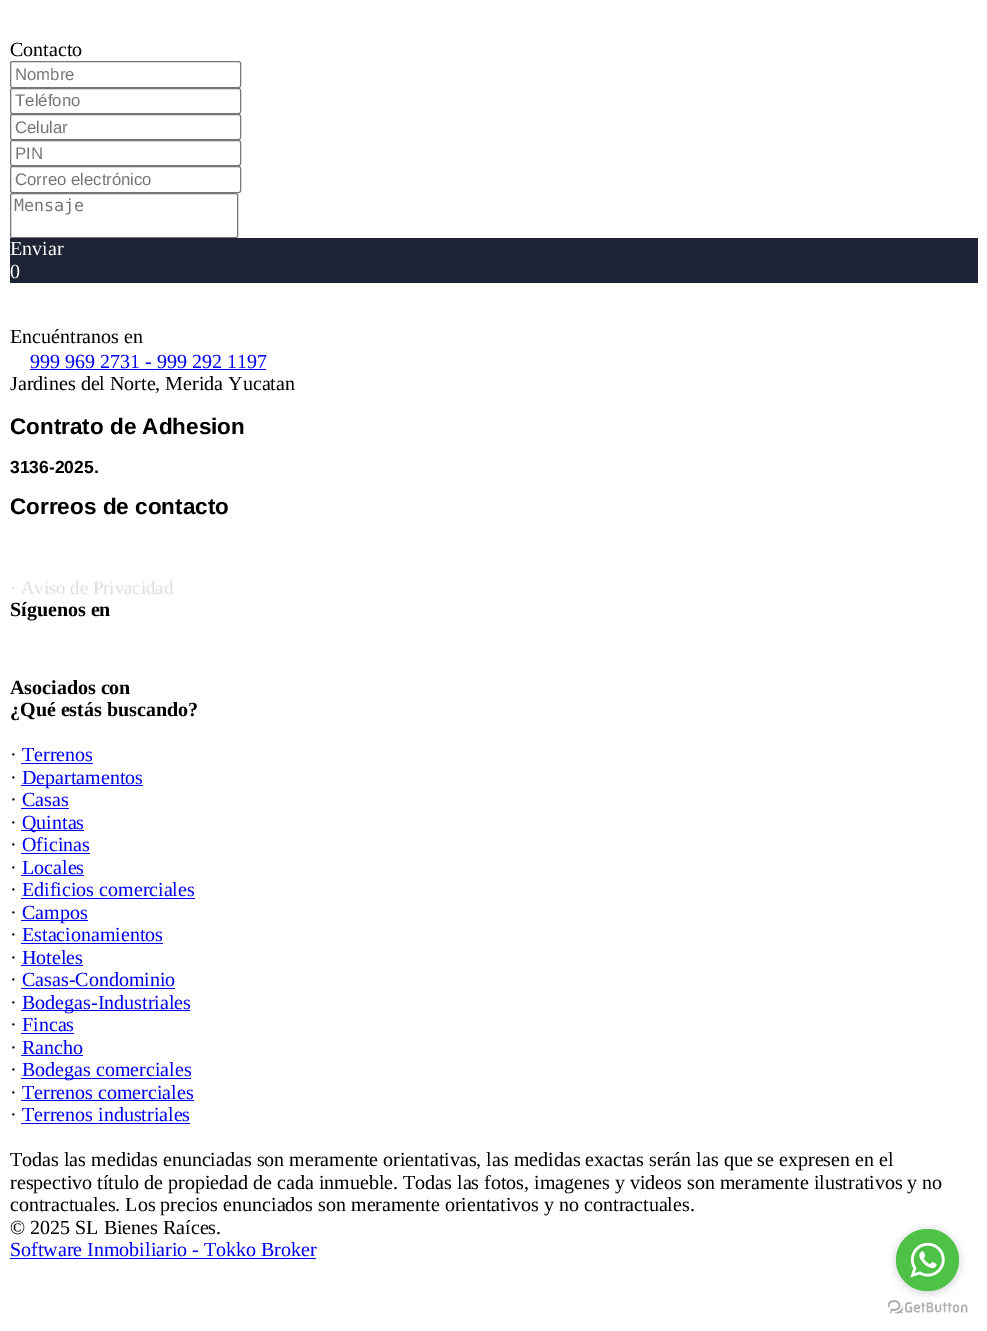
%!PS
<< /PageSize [987 1331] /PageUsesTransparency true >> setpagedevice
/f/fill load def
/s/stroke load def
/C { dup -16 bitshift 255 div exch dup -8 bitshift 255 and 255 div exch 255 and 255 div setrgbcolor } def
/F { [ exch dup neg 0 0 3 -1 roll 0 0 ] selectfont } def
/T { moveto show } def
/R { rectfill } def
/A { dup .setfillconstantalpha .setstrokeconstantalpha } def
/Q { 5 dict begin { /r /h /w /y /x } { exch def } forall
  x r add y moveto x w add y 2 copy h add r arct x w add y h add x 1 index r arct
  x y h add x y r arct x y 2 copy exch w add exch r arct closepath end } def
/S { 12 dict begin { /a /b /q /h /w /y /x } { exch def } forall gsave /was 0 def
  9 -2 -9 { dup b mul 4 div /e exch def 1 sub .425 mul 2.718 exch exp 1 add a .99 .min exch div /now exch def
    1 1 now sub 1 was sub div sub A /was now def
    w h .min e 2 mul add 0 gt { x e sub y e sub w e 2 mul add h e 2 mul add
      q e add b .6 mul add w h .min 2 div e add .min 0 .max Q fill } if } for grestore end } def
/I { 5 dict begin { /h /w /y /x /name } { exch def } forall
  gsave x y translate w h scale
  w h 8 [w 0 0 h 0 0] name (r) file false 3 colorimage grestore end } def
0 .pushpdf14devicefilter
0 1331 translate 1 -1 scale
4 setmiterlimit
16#FFFFFF C
0 0 987 1331 R
/LiberationSerif-Regular 20 F
16#000000 C
(Contacto) 10 56 T
16#767676 C
10.5 61.5 230 26 2 Q s
/LiberationSans-Regular 16.75 F
16#757575 C
(Nombre) 15 80 T
16#767676 C
10.5 88.5 230 25 2 Q s
16#757575 C
(Teléfono) 15 106 T
16#767676 C
10.5 114.5 230 25 2 Q s
16#757575 C
(Celular) 15 133 T
16#767676 C
10.5 140.5 230 25 2 Q s
16#757575 C
(PIN) 15 159 T
16#767676 C
10.5 166.5 230 26 2 Q s
16#757575 C
(Correo electrónico) 15 185 T
16#767676 C
10.5 193.5 227 44 2 Q s
/DejaVuSansMono-Regular 16.75 F
16#757575 C
(Mensaje) 14 211 T
16#1D2334 C
10 238 968 45 R
/LiberationSerif-Regular 20 F
16#FFFFFF C
(Enviar) 10 255 T
(0) 10 278 T
16#000000 C
(Encuéntranos en) 10 343 T
16#0000EE C
(999 969 2731 - 999 292 1197) 30 368 T
30 369 236 1 R
16#000000 C
(Jardines del Norte, Merida Yucatan) 10 390 T
/LiberationSans-Bold 22.5 F
(Contrato de Adhesion) 10 434 T
/LiberationSans-Bold 17.5 F
(3136-2025.) 10 473 T
/LiberationSans-Bold 22.5 F
(Correos de contacto) 10 514 T
/LiberationSerif-Regular 18.75 F
16#DDDDDD C
(· Aviso de Privacidad) 10 594 T
/LiberationSerif-Bold 20 F
16#000000 C
(Síguenos en) 10 616 T
(Asociados con) 10 694 T
(¿Qué estás buscando?) 10 716 T
/LiberationSerif-Regular 20 F
(·) 10 761 T
16#0000EE C
(Terrenos) 22 761 T
21 763 72 1 R
16#000000 C
(·) 10 784 T
16#0000EE C
21 785 122 1 R
(Departamentos) 22 784 T
16#000000 C
(·) 10 806 T
16#0000EE C
(Casas) 22 806 T
21 808 48 1 R
16#000000 C
(·) 10 829 T
16#0000EE C
21 830 63 1 R
(Quintas) 22 829 T
16#000000 C
(·) 10 851 T
16#0000EE C
(Oficinas) 22 851 T
21 853 69 1 R
16#000000 C
(·) 10 874 T
16#0000EE C
(Locales) 22 874 T
21 875 63 1 R
16#000000 C
(·) 10 896 T
16#0000EE C
(Edificios comerciales) 22 896 T
21 898 174 1 R
16#000000 C
(·) 10 919 T
16#0000EE C
21 920 67 1 R
(Campos) 22 919 T
16#000000 C
(·) 10 941 T
16#0000EE C
(Estacionamientos) 22 941 T
21 943 142 1 R
16#000000 C
(·) 10 964 T
16#0000EE C
(Hoteles) 22 964 T
21 965 62 1 R
16#000000 C
(·) 10 986 T
16#0000EE C
(Casas-Condominio) 22 986 T
21 988 154 1 R
16#000000 C
(·) 10 1009 T
16#0000EE C
21 1010 169 1 R
(Bodegas-Industriales) 22 1009 T
16#000000 C
(·) 10 1031 T
16#0000EE C
(Fincas) 22 1031 T
21 1033 53 1 R
16#000000 C
(·) 10 1054 T
16#0000EE C
(Rancho) 22 1054 T
21 1055 62 1 R
16#000000 C
(·) 10 1076 T
16#0000EE C
21 1078 170 1 R
(Bodegas comerciales) 22 1076 T
16#000000 C
(·) 10 1099 T
16#0000EE C
(Terrenos comerciales) 22 1099 T
21 1100 173 1 R
16#000000 C
(·) 10 1121 T
16#0000EE C
(Terrenos industriales) 22 1121 T
21 1123 169 1 R
16#000000 C
(Todas las medidas enunciadas son meramente orientativas, las medidas exactas serán las que se expresen en el) 10 1166 T
(respectivo título de propiedad de cada inmueble. Todas las fotos, imagenes y videos son meramente ilustrativos y no) 10 1189 T
(contractuales. Los precios enunciados son meramente orientativos y no contractuales.) 10 1211 T
(© 2025 SL Bienes Raíces.) 10 1234 T
16#0000EE C
(Software Inmobiliario - Tokko Broker) 10 1256 T
10 1258 306 1 R
(2.rgb) 888 1300 80 14 I
16#888888 C
896 1230 63 63 31.5 4.5 .4 S
16#4DC247 C
896 1229 63 62 31 Q f
(1.rgb) 910 1242 35 36 I
.poppdf14devicefilter showpage
